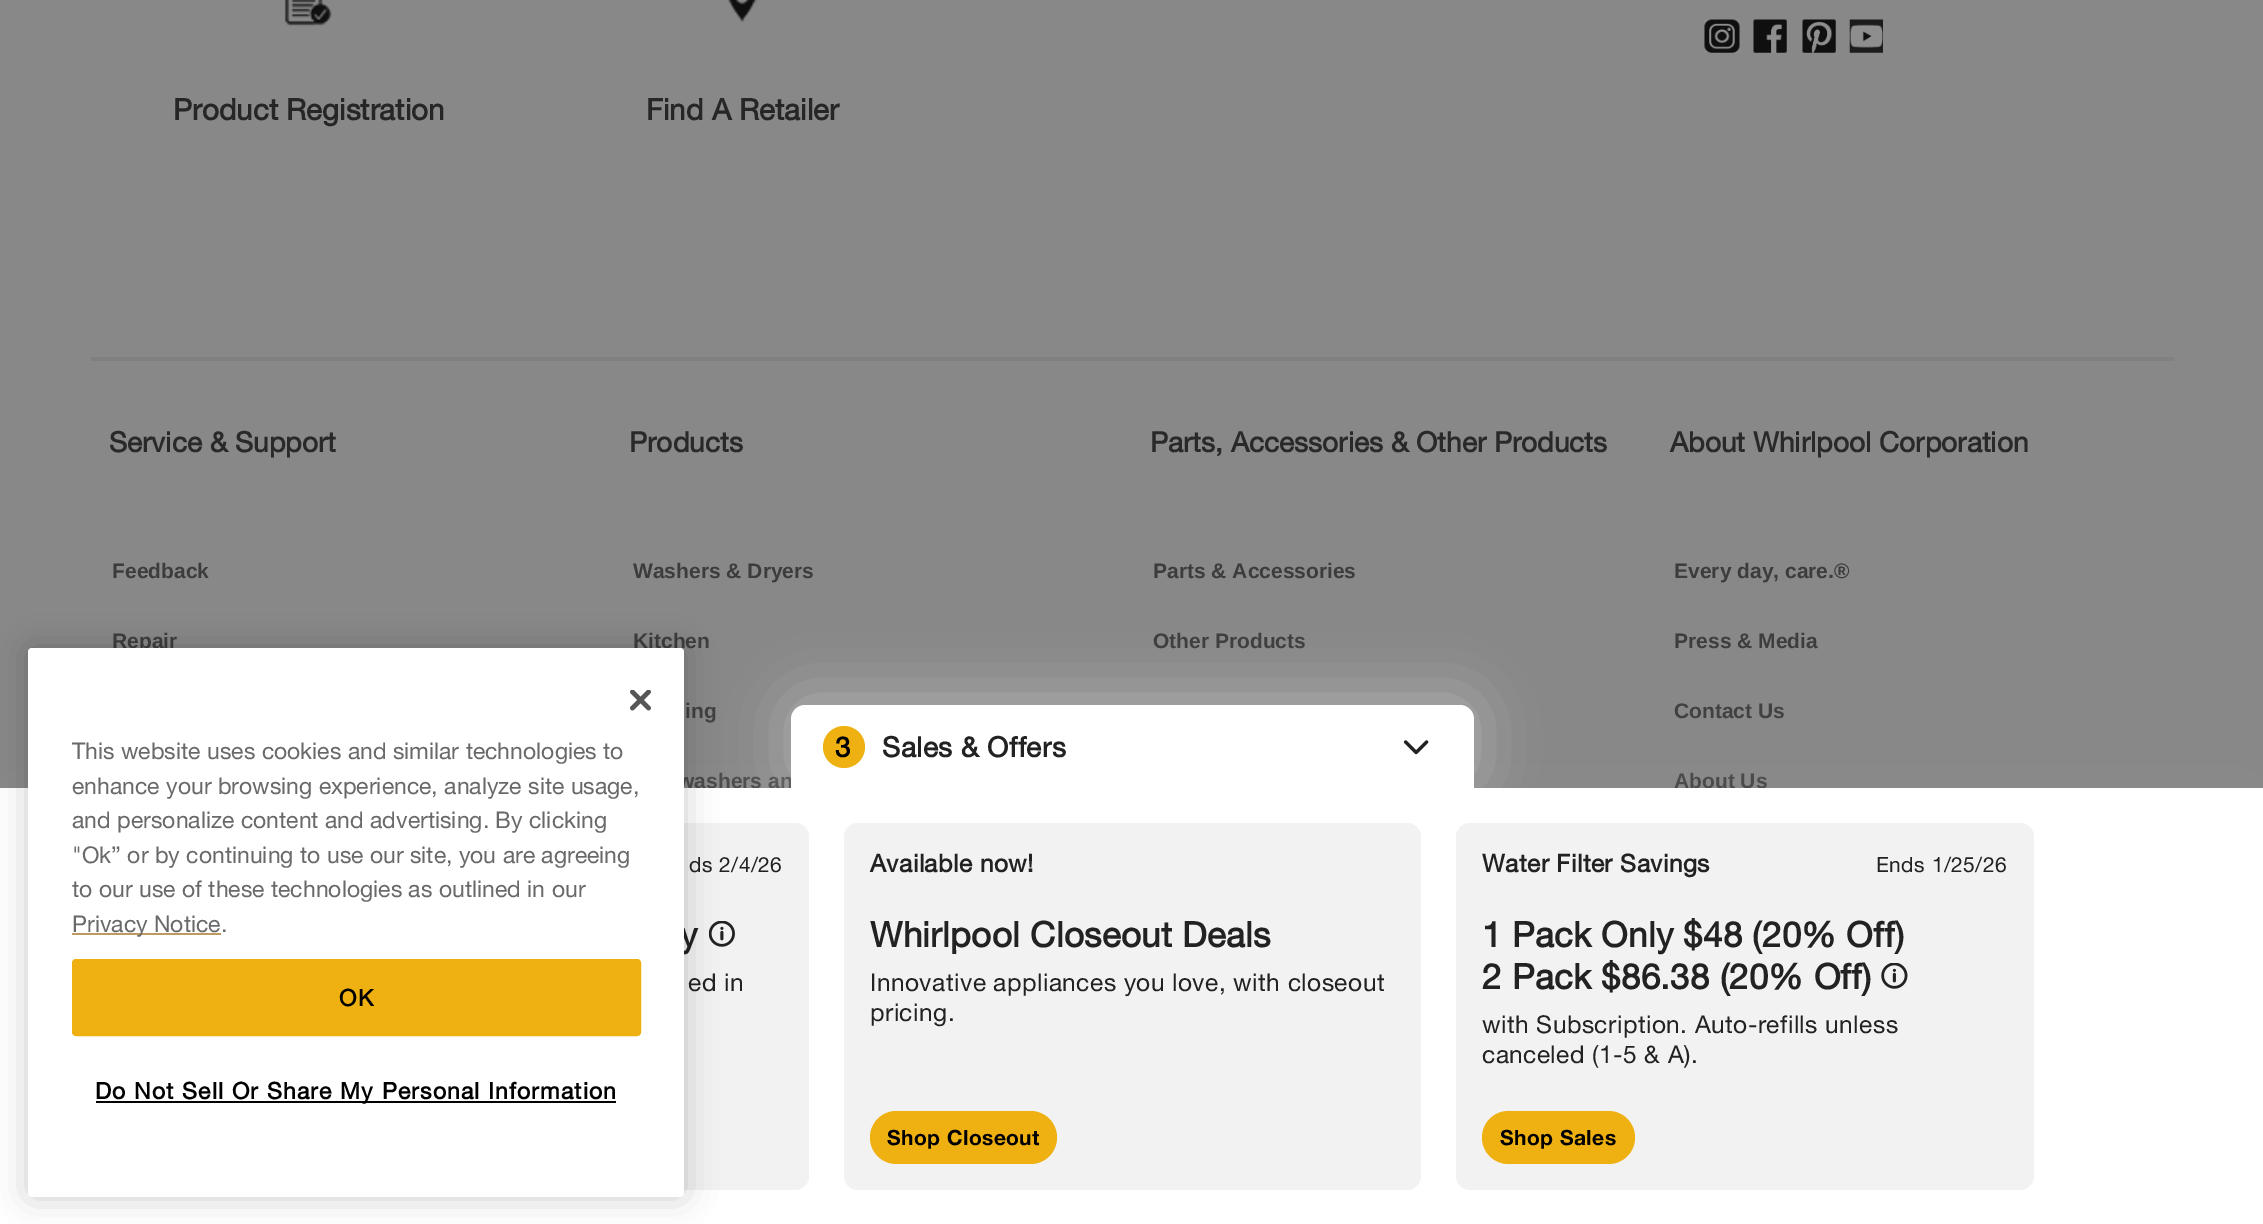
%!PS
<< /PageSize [2263 1224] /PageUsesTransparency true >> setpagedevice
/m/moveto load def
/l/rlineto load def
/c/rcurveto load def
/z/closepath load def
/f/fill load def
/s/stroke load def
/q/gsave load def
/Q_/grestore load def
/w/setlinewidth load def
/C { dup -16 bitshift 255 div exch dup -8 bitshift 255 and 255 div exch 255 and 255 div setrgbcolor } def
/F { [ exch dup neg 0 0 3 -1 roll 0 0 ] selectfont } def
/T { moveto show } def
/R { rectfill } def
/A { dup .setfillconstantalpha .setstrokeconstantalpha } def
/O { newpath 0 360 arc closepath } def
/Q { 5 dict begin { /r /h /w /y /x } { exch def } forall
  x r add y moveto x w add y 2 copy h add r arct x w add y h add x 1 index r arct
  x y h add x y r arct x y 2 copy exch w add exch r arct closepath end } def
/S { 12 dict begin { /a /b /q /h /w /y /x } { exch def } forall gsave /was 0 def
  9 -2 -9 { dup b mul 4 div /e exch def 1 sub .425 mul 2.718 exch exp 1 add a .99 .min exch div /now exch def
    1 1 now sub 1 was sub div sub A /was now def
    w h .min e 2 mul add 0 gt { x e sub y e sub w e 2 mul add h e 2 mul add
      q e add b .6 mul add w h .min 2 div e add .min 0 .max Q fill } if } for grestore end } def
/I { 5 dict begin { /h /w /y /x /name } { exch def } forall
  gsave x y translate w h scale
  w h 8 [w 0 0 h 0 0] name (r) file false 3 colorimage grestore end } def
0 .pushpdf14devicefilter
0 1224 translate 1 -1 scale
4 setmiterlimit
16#F2F2F2 C
0 0 2263 1224 R
16#E2E2E2 C
91 357 2083 4 R
(1.rgb) 1704 19 36 34 I
(2.rgb) 1753 19 34 34 I
(3.rgb) 1802 19 34 34 I
(4.rgb) 1849 19 34 34 I
(5.rgb) 284 0 48 26 I
/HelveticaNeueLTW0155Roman-Bold 29.5 F
16#2E2E2E C
(Product Registration) 173 120 T
(6.rgb) 727 0 30 22 I
(Find A Retailer) 646 120 T
/HelveticaNeueLTW0155Roman-Bold 28 F
16#353535 C
(Service & Support) 109 452 T
/LiberationSans-Bold 21 F
16#5B5B5B C
(Feedback) 112 578 T
(Repair) 112 648 T
/HelveticaNeueLTW0155Roman-Bold 28 F
16#353535 C
(Products) 629 452 T
/LiberationSans-Bold 21 F
16#5B5B5B C
(Washers & Dryers) 633 578 T
(Kitchen) 633 648 T
(ing) 685 718 T
(washers an) 678 788 T
/HelveticaNeueLTW0155Roman-Bold 28 F
16#353535 C
(Parts, Accessories & Other Products) 1150 452 T
/LiberationSans-Bold 21 F
16#5B5B5B C
(Parts & Accessories) 1153 578 T
(Other Products) 1153 648 T
/HelveticaNeueLTW0155Roman-Bold 28 F
16#353535 C
(About Whirlpool Corporation) 1670 452 T
/LiberationSans-Bold 21 F
16#5B5B5B C
(Every day, care.®) 1674 578 T
(Press & Media) 1674 648 T
(Contact Us) 1674 718 T
(About Us) 1674 788 T
16#FFFFFF C
0 781 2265 437 0 65 .35 S
0 788 2263 436 R
0.5 A
16#1E1E1E C
0 0 2263 788 R
1 A
16#FFFFFF C
805 705 m 655 0 l 7.5 0 14 6.5 14 14 c 0 70 l -683 0 l 0 -70 l 0 -7.5 6.5 -14 14 -14 c z f
16#F2F2F2 C
231 823 578 367 14 Q f
844 823 577 367 14 Q f
1456 823 578 367 14 Q f
q
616 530 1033 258 rectclip
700 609 m 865 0 l 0 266 l -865 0 l z 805 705 m 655 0 l 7.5 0 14 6.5 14 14 c 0 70 l -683 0 l 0 -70 l 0 -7.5 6.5 -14 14 -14 c z eoclip newpath
16#FFFFFF C
791 700 683 84 14 30 .35 S
Q_
16#EEB111 C
844 747 21 O f
/HelveticaNeueLTW0155Roman-Bold 28 F
16#000000 C
835 757 m .45 0 (3) ashow
16#222222 C
882 757 m .45 0 (Sales & Offers) ashow
(7.rgb) 1403 740 26 15 I
/HelveticaNeueLTW0155Roman-Regular 21 F
689 872 m .45 0 (ds 2/4/26) ashow
/HelveticaNeueLTW0155Roman-Bold 35 F
680 947 m .25 0 (y) ashow
(8.rgb) 709 921 26 26 I
/HelveticaNeueLTW0155Roman-Regular 24.5 F
688 991 m .45 0 (ed in) ashow
/HelveticaNeueLTW0155Roman-Bold 24.5 F
870 872 m .45 0 (Available now!) ashow
/HelveticaNeueLTW0155Roman-Bold 35 F
870 947 m .25 0 (Whirlpool Closeout Deals) ashow
/HelveticaNeueLTW0155Roman-Regular 24.5 F
870 991 m .45 0 (Innovative appliances you love, with closeout) ashow
870 1021 m .45 0 (pricing.) ashow
16#EEB111 C
870 1111 187 53 26.5 Q f
/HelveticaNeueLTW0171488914-Bold 21 F
16#000000 C
887 1145 m .45 0 (Shop Closeout) ashow
/HelveticaNeueLTW0155Roman-Bold 24.5 F
16#222222 C
1482 872 m .45 0 (Water Filter Savings) ashow
/HelveticaNeueLTW0155Roman-Regular 21 F
1876 872 m .45 0 (Ends 1/25/26) ashow
/HelveticaNeueLTW0155Roman-Bold 35 F
1482 947 m .25 0 (1 Pack Only $48 \(20% Off\)) ashow
1482 989 m .25 0 (2 Pack $86.38 \(20% Off\)) ashow
(9.rgb) 1881 963 27 26 I
/HelveticaNeueLTW0155Roman-Regular 24.5 F
1482 1033 m .45 0 (with Subscription. Auto-refills unless) ashow
1482 1063 m .45 0 (canceled \(1-5 & A\).) ashow
16#EEB111 C
1482 1111 153 53 26.5 Q f
/HelveticaNeueLTW0171488914-Bold 21 F
16#000000 C
1500 1145 m .45 0 (Shop Sales) ashow
28 648 656 549 4 16 .2 S
16#FFFFFF C
28 648 656 549 4 Q f
(10.rgb) 630 690 21 21 I
/HelveticaNeueLTW0155Roman-Regular 23 F
16#696969 C
(This website uses cookies and similar technologies to) 72 759 T
(enhance your browsing experience, analyze site usage,) 72 794 T
(and personalize content and advertising. By clicking) 72 828 T
("Ok” or by continuing to use our site, you are agreeing) 72 863 T
(to our use of these technologies as outlined in our) 72 897 T
16#BD9B60 C
72 933 149 2 R
16#696969 C
(Privacy Notice.) 72 932 T
16#EEB111 C
73 960 567 75 3 Q q f Q_
2 w
s
/HelveticaNeueLTW0155Roman-Bold 23 F
16#000000 C
339 1006 m 1.15 0 (OK) ashow
96 1101 520 2 R
95 1099 m 1.15 0 (Do Not Sell Or Share My Personal Information) ashow
.poppdf14devicefilter showpage
